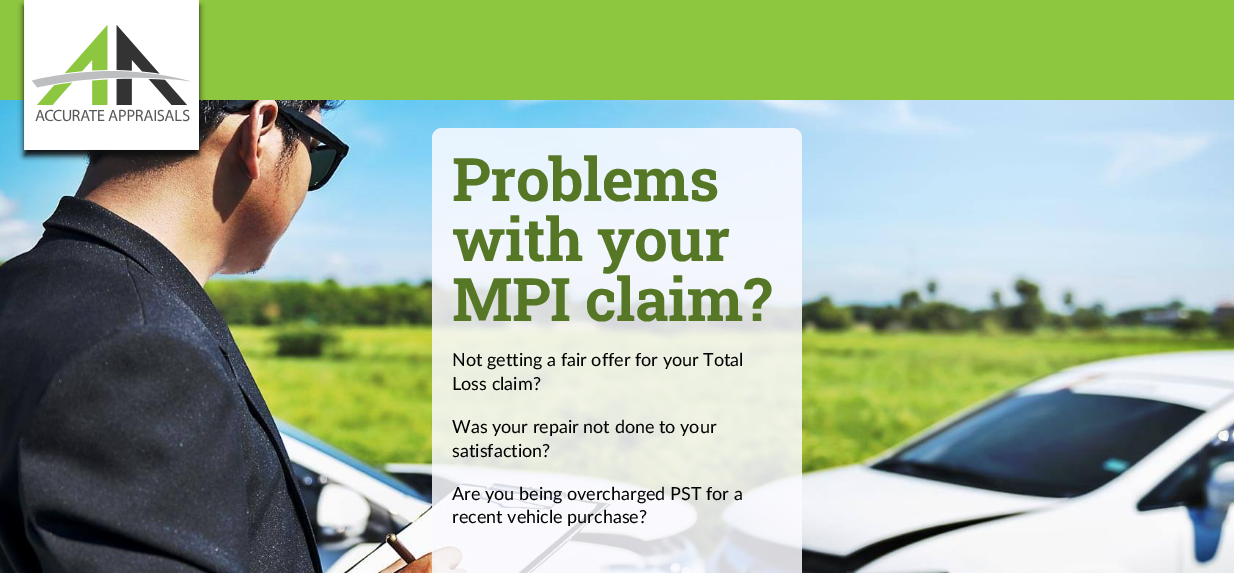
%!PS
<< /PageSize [1234 573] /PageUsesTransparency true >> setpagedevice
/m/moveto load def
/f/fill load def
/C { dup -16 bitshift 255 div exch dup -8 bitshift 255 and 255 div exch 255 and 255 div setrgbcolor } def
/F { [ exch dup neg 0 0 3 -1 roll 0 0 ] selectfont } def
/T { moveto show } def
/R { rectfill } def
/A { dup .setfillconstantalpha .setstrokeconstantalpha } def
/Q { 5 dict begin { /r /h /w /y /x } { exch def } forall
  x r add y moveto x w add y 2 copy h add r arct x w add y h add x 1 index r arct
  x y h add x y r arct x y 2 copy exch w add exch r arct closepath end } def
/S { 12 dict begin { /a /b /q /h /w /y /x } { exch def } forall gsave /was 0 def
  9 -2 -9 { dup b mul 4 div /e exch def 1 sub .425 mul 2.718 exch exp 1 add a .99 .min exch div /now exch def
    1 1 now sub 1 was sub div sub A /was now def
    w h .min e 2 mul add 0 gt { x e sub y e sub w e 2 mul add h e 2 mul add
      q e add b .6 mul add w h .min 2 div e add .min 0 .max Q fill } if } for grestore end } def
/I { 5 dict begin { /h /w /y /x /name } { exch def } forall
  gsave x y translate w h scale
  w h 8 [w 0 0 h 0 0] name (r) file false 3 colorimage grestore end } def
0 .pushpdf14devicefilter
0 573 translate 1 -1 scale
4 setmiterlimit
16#8DC63F C
0 0 1234 573 R
(2.rgb) 0 100 1234 473 I
16#0F0F0F C
24 6 175 150 0 3 1 S
(1.rgb) 24 0 175 150 I
0.85 A
16#FAFAFF C
432 128 370 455 10 Q f
/RobotoSlab-Bold 60 F
1 A
16#567826 C
452 201 m -.5 0 (Problems) ashow
452 261 m -.5 0 (with your) ashow
452 321 m -.5 0 (MPI claim?) ashow
/Lato-Regular 18 F
16#000000 C
(Not getting a fair offer for your Total) 452 366 T
(Loss claim?) 452 390 T
(Was your repair not done to your) 452 433 T
(satisfaction?) 452 457 T
(Are you being overcharged PST for a) 452 500 T
(recent vehicle purchase?) 452 523 T
.poppdf14devicefilter showpage
